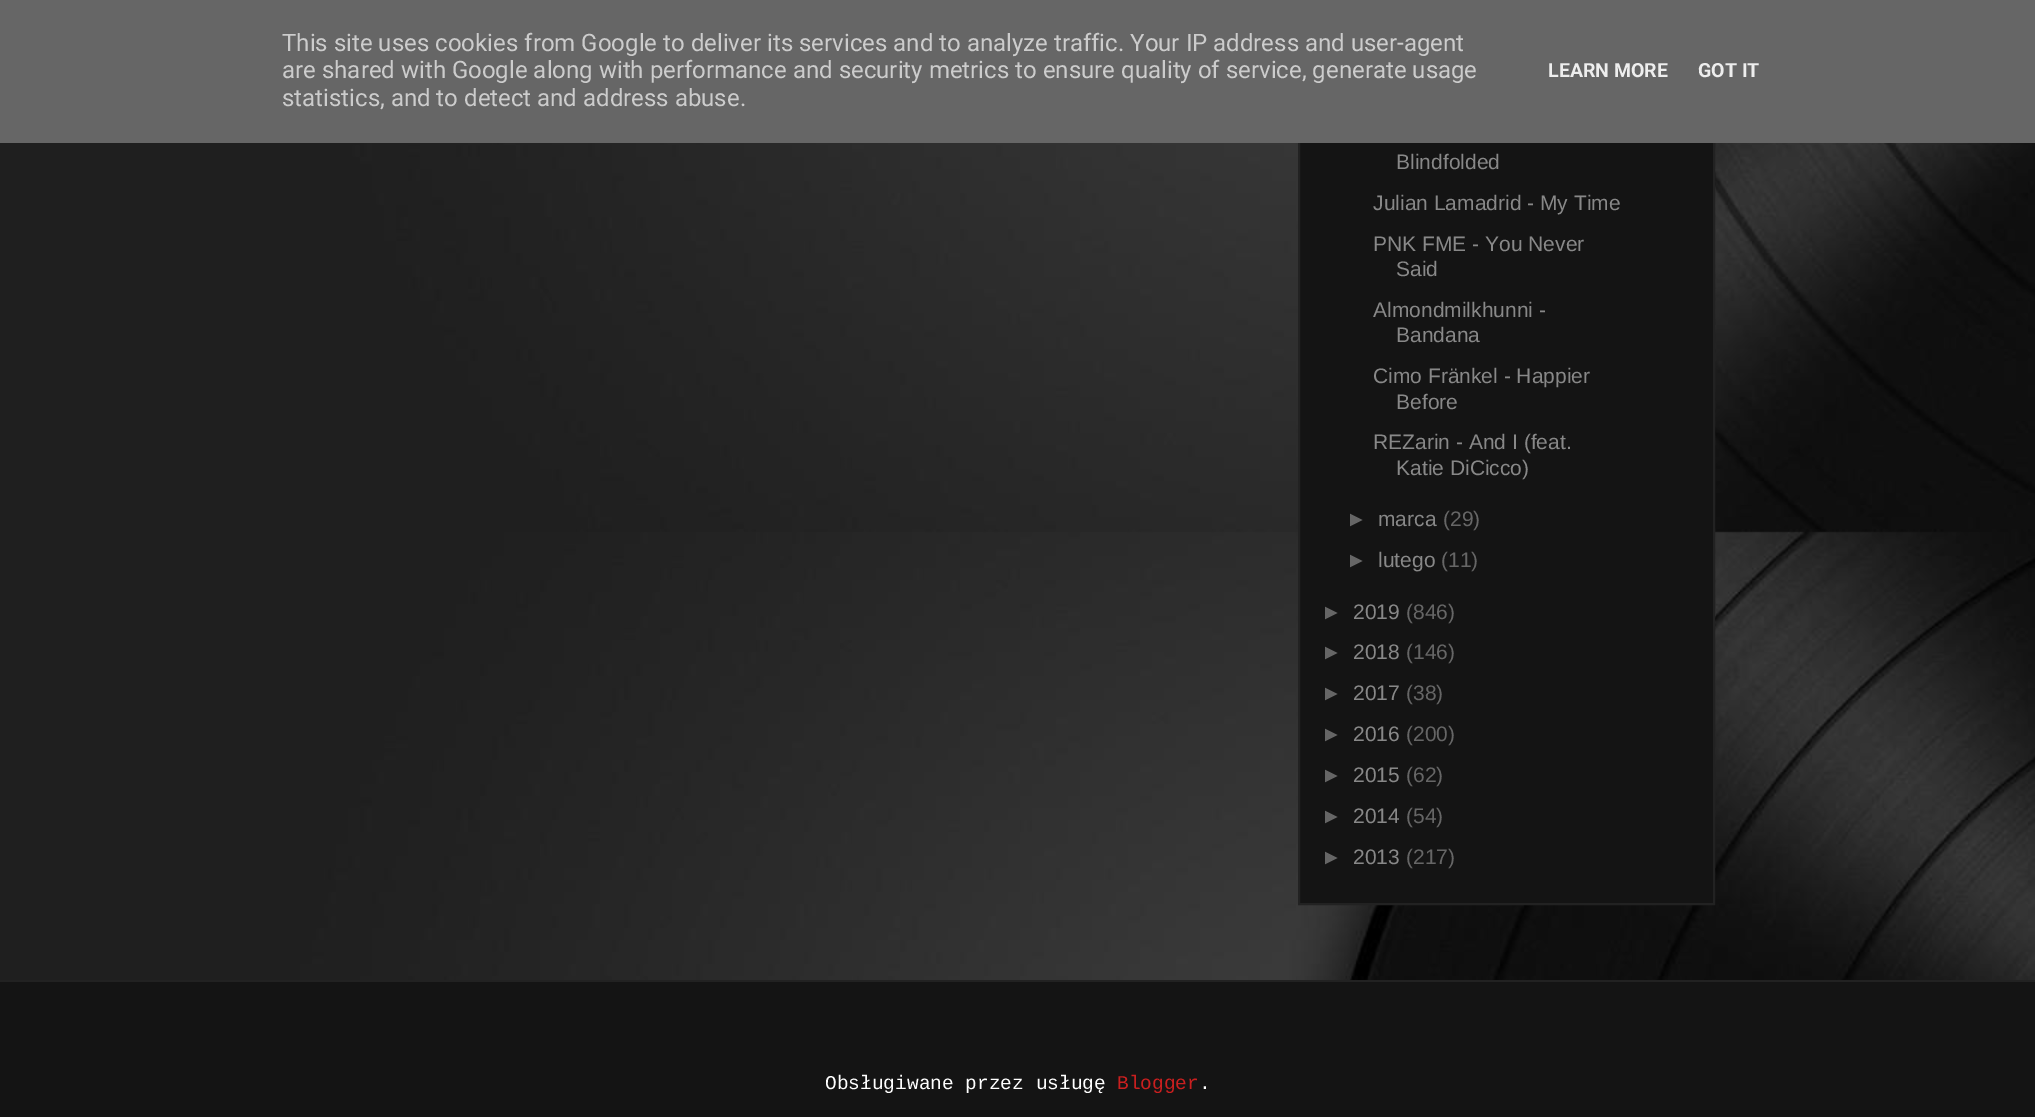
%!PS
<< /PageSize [2035 1117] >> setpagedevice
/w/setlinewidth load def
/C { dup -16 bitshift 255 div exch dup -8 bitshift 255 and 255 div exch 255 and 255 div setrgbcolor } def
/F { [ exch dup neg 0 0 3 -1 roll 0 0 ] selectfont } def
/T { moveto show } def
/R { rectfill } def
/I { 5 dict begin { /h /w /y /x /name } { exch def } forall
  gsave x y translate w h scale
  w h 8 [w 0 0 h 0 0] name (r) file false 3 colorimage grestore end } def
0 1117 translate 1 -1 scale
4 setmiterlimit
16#FFFFFF C
0 0 2035 1117 R
(1.rgb) 0 143 2035 837 I
16#141414 C
1300 143 413 760 R
16#222222 C
2 w
1299 -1 415 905 rectstroke
16#666666 C
0 0 2035 143 R
/Roboto-Regular 24 F
16#CCCCCC C
(This site uses cookies from Google to deliver its services and to analyze traffic. Your IP address and user-agent) 282 51 T
(are shared with Google along with performance and security metrics to ensure quality of service, generate usage) 282 78 T
(statistics, and to detect and address abuse.) 282 106 T
/Roboto-Bold 19.5 F
16#EEEEEE C
(LEARN MORE) 1548 77 T
(GOT IT) 1698 77 T
/LiberationSans-Regular 21 F
16#888888 C
(Blindfolded) 1396 169 T
(Julian Lamadrid - My Time) 1373 210 T
(PNK FME - You Never) 1373 251 T
(Said) 1396 276 T
(Almondmilkhunni -) 1373 317 T
(Bandana) 1396 342 T
(Cimo Fränkel - Happier) 1373 383 T
(Before) 1396 409 T
(REZarin - And I \(feat.) 1373 449 T
(Katie DiCicco\)) 1396 475 T
16#666666 C
(►) 1346 526 T
16#888888 C
(marca) 1378 526 T
16#666666 C
(\(29\)) 1443 526 T
(►) 1346 567 T
16#888888 C
(lutego) 1378 567 T
16#666666 C
(\(11\)) 1441 567 T
(►) 1321 619 T
16#888888 C
(2019) 1353 619 T
16#666666 C
(\(846\)) 1406 619 T
(►) 1321 659 T
16#888888 C
(2018) 1353 659 T
16#666666 C
(\(146\)) 1406 659 T
(►) 1321 700 T
16#888888 C
(2017) 1353 700 T
16#666666 C
(\(38\)) 1406 700 T
(►) 1321 741 T
16#888888 C
(2016) 1353 741 T
16#666666 C
(\(200\)) 1406 741 T
(►) 1321 782 T
16#888888 C
(2015) 1353 782 T
16#666666 C
(\(62\)) 1406 782 T
(►) 1321 823 T
16#888888 C
(2014) 1353 823 T
16#666666 C
(\(54\)) 1406 823 T
(►) 1321 864 T
16#888888 C
(2013) 1353 864 T
16#666666 C
(\(217\)) 1406 864 T
16#141414 C
0 982 2035 135 R
16#222222 C
0 980 2035 2 R
/LiberationMono-Regular 19.5 F
16#FFFFFF C
(Obsługiwane przez usługę) 825 1089 T
16#C91F1F C
(Blogger) 1117 1089 T
16#FFFFFF C
(.) 1199 1089 T
showpage
